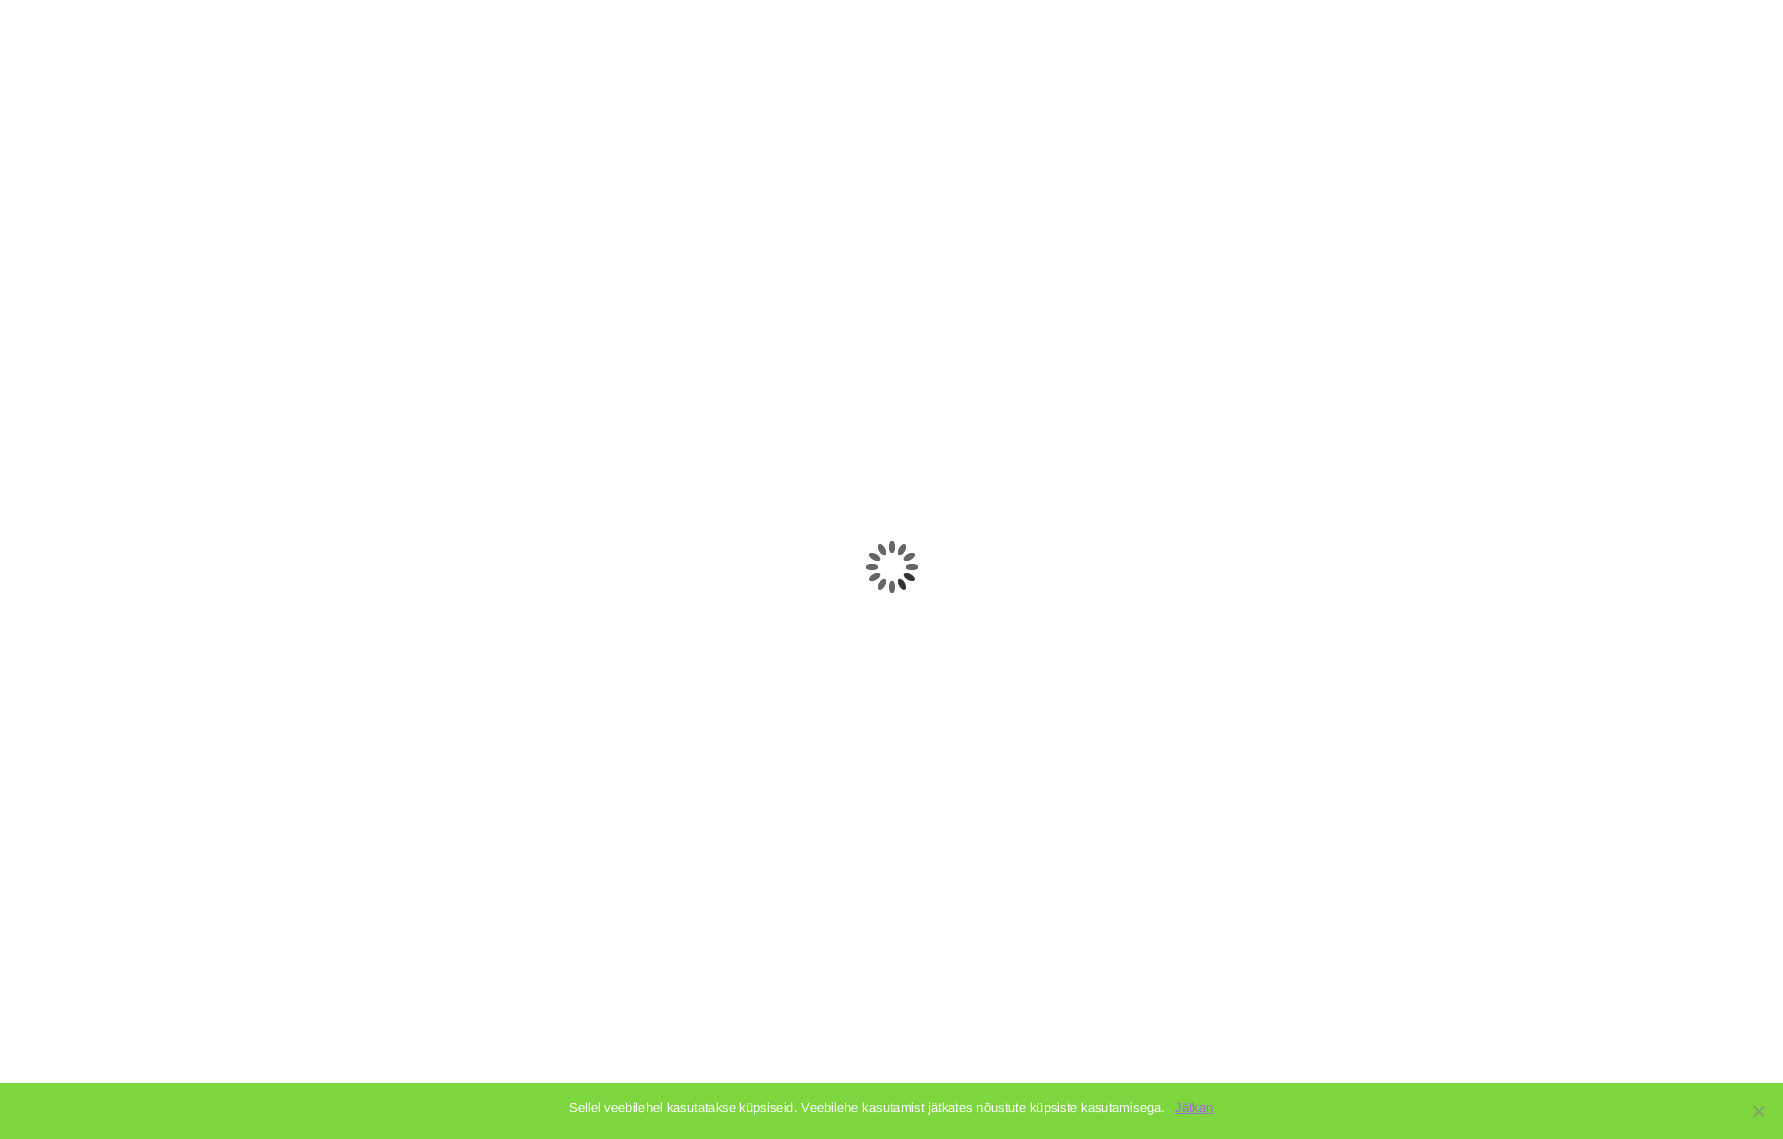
%!PS
<< /PageSize [1783 1139] >> setpagedevice
/m/moveto load def
/l/rlineto load def
/z/closepath load def
/f/fill load def
/C { dup -16 bitshift 255 div exch dup -8 bitshift 255 and 255 div exch 255 and 255 div setrgbcolor } def
/F { [ exch dup neg 0 0 3 -1 roll 0 0 ] selectfont } def
/T { moveto show } def
/R { rectfill } def
/I { 5 dict begin { /h /w /y /x /name } { exch def } forall
  gsave x y translate w h scale
  w h 8 [w 0 0 h 0 0] name (r) file false 3 colorimage grestore end } def
0 1139 translate 1 -1 scale
4 setmiterlimit
16#FFFFFF C
0 0 1783 1139 R
(1.rgb) 866 541 52 52 I
16#7DD63E C
0 1083 1783 56 R
/LiberationSans-Regular 13 F
16#FFFFFF C
(Sellel veebilehel kasutatakse küpsiseid. Veebilehe kasutamist jätkates nõustute küpsiste kasutamisega.) 569 1112 T
16#A568E2 C
(Jätkan) 1175 1112 T
1175 1113 39 1 R
16#7FAB5F C
1763.5 1105.5 m 1.5 1.5 l -10.5 10.5 l -1.5 -1.5 l z f
1753 1107 m 1.5 -1.5 l 10.5 10.5 l -1.5 1.5 l z f
showpage
